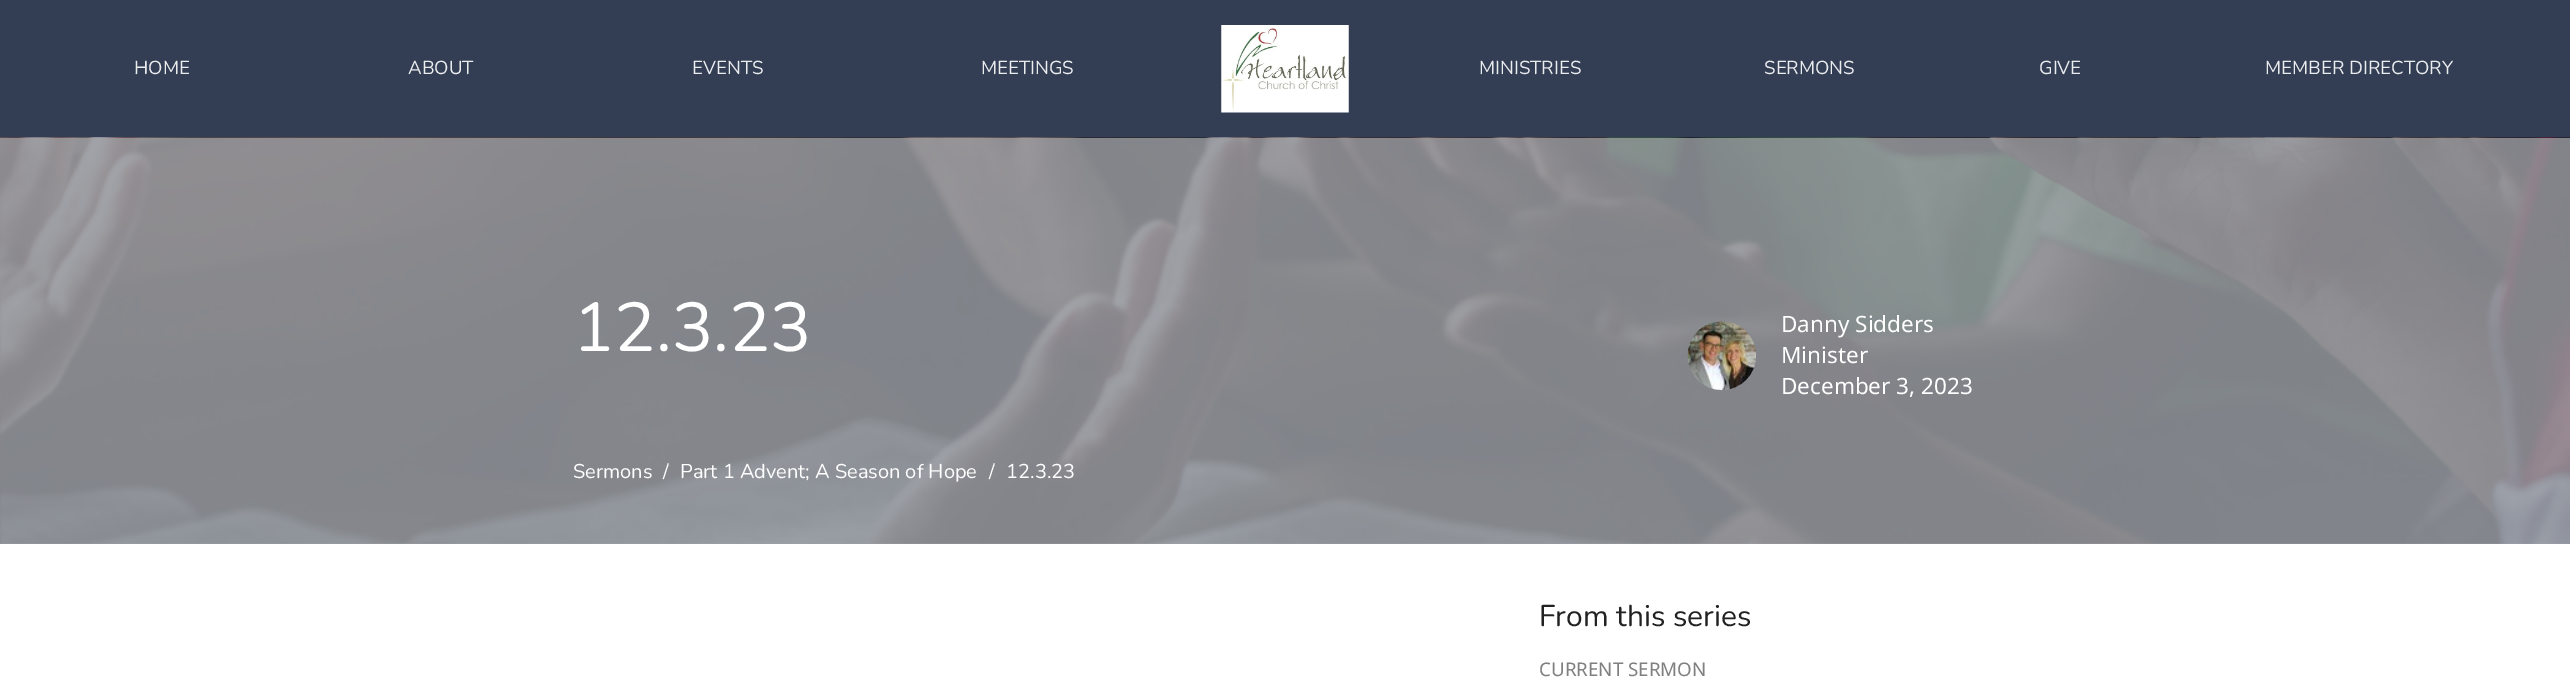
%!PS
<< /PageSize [2570 686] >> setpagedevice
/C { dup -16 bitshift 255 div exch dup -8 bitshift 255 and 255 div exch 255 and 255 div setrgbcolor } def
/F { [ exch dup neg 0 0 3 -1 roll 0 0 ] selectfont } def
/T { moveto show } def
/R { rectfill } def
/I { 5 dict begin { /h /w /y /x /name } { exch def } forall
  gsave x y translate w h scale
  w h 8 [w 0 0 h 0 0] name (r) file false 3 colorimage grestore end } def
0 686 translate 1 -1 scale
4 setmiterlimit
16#FFFFFF C
0 0 2570 686 R
16#333E54 C
0 0 2570 138 R
/Nunito-Regular 18.75 F
16#EBECEE C
(HOME) 134 74 T
(ABOUT) 408 74 T
(EVENTS) 692 74 T
(MEETINGS) 981 74 T
(1.rgb) 1221 25 128 88 I
(MINISTRIES) 1479 74 T
(SERMONS) 1764 74 T
(GIVE) 2039 74 T
(MEMBER DIRECTORY) 2265 74 T
(2.rgb) 0 137 2570 407 I
/Nunito-Regular 69 F
16#FFFFFF C
(12.3.23) 573 351 T
(3.rgb) 1687 321 69 69 I
/NotoSans-Regular 22.5 F
(Danny Sidders) 1781 332 T
(Minister) 1781 363 T
(December 3, 2023) 1781 394 T
/Nunito-Regular 20 F
(Sermons) 573 478 T
(/) 663 478 T
(Part 1 Advent; A Season of Hope) 680 478 T
(/) 989 478 T
(12.3.23) 1006 478 T
/Nunito-Regular 30 F
16#222222 C
(From this series) 1539 626 T
/NotoSans-Regular 18.75 F
16#808080 C
(CURRENT SERMON) 1539 676 T
showpage
